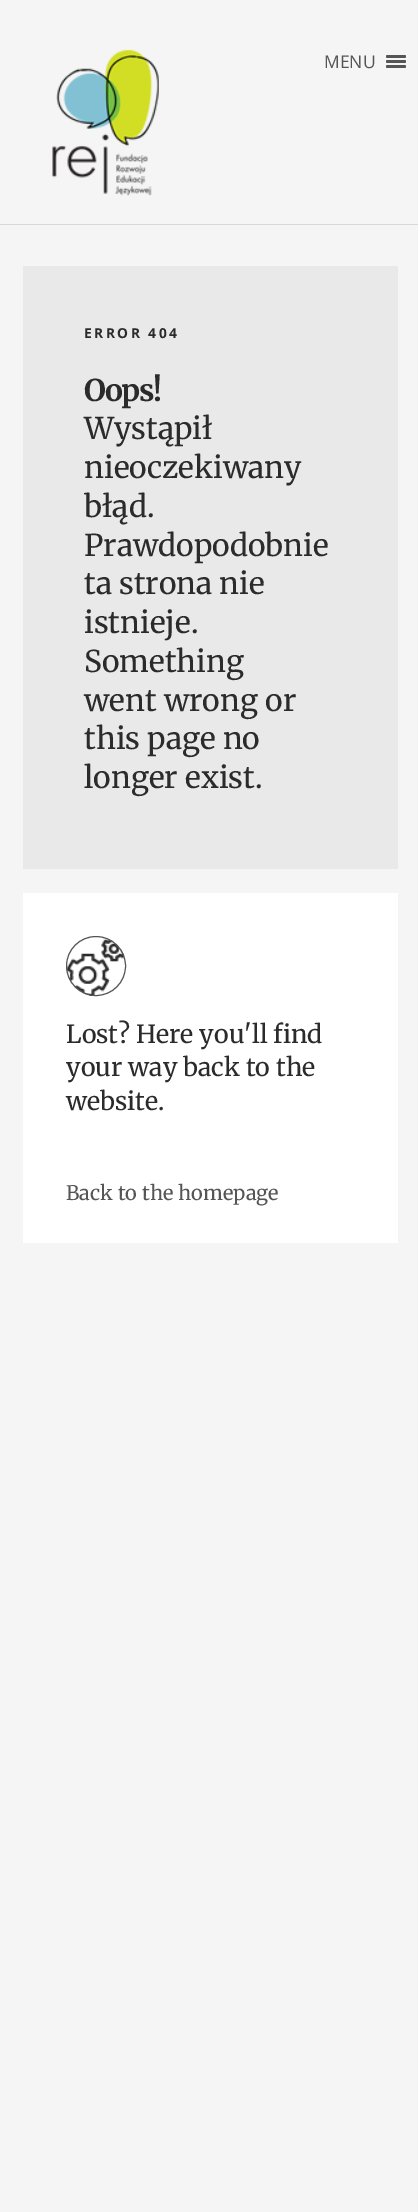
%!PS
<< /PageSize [418 2212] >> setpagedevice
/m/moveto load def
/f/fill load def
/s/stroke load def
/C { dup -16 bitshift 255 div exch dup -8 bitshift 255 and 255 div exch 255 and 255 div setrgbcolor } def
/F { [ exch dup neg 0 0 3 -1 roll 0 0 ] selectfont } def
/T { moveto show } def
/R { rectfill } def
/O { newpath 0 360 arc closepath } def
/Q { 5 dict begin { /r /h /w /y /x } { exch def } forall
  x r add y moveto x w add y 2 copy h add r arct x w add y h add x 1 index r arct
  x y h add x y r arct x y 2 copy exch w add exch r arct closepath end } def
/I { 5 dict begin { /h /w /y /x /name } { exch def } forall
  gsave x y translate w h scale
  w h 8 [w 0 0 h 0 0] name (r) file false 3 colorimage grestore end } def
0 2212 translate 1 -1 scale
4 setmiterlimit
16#F5F5F5 C
0 0 418 2212 R
16#D8D8D8 C
0 224 418 1 R
(1.rgb) 52 49 107 147 I
/OpenSans-Regular 17.5 F
16#555555 C
(MENU) 324 68 T
386 55 20 3 1.5 Q f
386 60 20 3 1.5 Q f
386 65 20 3 1.5 Q f
16#E9E9E9 C
23 266 375 603 R
/OpenSans-Bold 13.75 F
16#2B2B2B C
84 338 m 2.5 0 (ERROR 404) ashow
/Merriweather-Bold 30 F
84 401 m -1.25 0 (Oops!) ashow
/Merriweather-Regular 30 F
(Wystąpił) 84 439 T
(nieoczekiwany) 84 478 T
(błąd.) 84 517 T
(Prawdopodobnie) 84 556 T
(ta strona nie) 84 594 T
(istnieje.) 84 633 T
(Something) 84 672 T
(went wrong or) 84 711 T
(this page no) 84 749 T
(longer exist.) 84 788 T
16#FFFFFF C
23 893 375 350 R
(2.rgb) 66 938 59 58 I
16#555555 C
96 966 29.5 O s
/Merriweather-Regular 25 F
16#2B2B2B C
(Lost? Here you'll find) 66 1043 T
(your way back to the) 66 1076 T
(website.) 66 1110 T
/Merriweather-Regular 20 F
16#555555 C
(Back to the homepage) 66 1200 T
showpage
